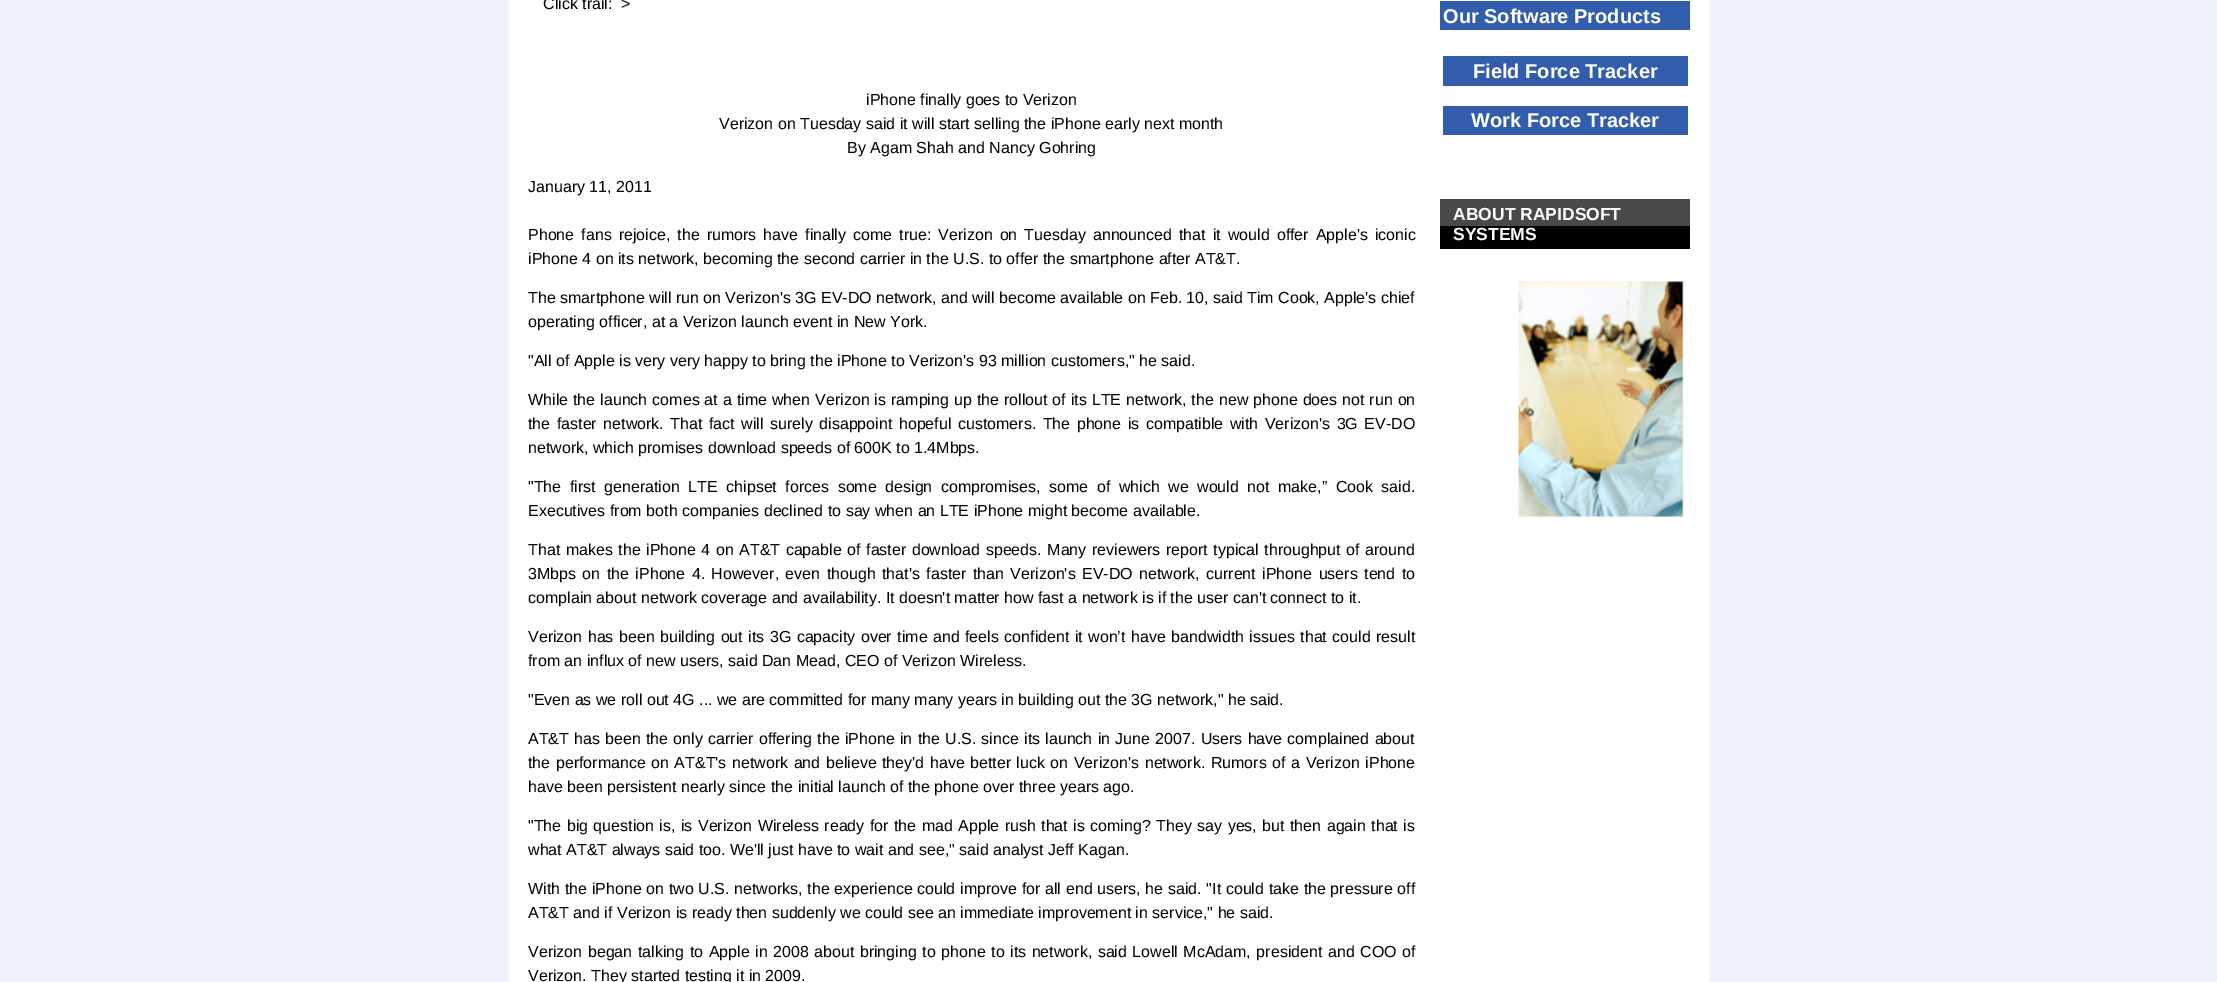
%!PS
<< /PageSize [2217 982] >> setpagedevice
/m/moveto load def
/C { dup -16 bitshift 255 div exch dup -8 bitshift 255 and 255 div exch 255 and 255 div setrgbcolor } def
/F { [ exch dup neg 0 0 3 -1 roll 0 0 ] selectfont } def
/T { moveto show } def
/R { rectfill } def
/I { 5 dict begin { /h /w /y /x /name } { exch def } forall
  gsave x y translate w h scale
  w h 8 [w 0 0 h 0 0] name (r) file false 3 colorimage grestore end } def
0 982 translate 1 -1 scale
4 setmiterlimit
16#F0F2FB C
0 0 2217 982 R
16#FFFFFF C
509 0 1200 982 R
/LiberationSans-Regular 16 F
16#000000 C
(Click trail:) 543 9 T
(>) 621 9 T
(iPhone finally goes to Verizon) 866 105 T
(Verizon on Tuesday said it will start selling the iPhone early next month) 719 129 T
(By Agam Shah and Nancy Gohring) 847 153 T
(January 11, 2011) 528 192 T
528 240 m 2.6 0 32 (Phone fans rejoice, the rumors have finally come true: Verizon on Tuesday announced that it would offer Apple's iconic) widthshow
(iPhone 4 on its network, becoming the second carrier in the U.S. to offer the smartphone after AT&T.) 528 264 T
(The smartphone will run on Verizon's 3G EV-DO network, and will become available on Feb. 10, said Tim Cook, Apple's chief) 528 303 T
(operating officer, at a Verizon launch event in New York.) 528 327 T
("All of Apple is very very happy to bring the iPhone to Verizon's 93 million customers," he said.) 528 366 T
528 405 m .55 0 32 (While the launch comes at a time when Verizon is ramping up the rollout of its LTE network, the new phone does not run on) widthshow
528 429 m 2.1 0 32 (the faster network. That fact will surely disappoint hopeful customers. The phone is compatible with Verizon's 3G EV-DO) widthshow
(network, which promises download speeds of 600K to 1.4Mbps.) 528 453 T
528 492 m 4.1 0 32 ("The first generation LTE chipset forces some design compromises, some of which we would not make,” Cook said.) widthshow
(Executives from both companies declined to say when an LTE iPhone might become available.) 528 516 T
528 555 m 1.1 0 32 (That makes the iPhone 4 on AT&T capable of faster download speeds. Many reviewers report typical throughput of around) widthshow
528 579 m 2 0 32 (3Mbps on the iPhone 4. However, even though that's faster than Verizon's EV-DO network, current iPhone users tend to) widthshow
(complain about network coverage and availability. It doesn't matter how fast a network is if the user can't connect to it.) 528 603 T
528 642 m 1 0 32 (Verizon has been building out its 3G capacity over time and feels confident it won’t have bandwidth issues that could result) widthshow
(from an influx of new users, said Dan Mead, CEO of Verizon Wireless.) 528 666 T
("Even as we roll out 4G ... we are committed for many many years in building out the 3G network," he said.) 528 705 T
528 744 m .8 0 32 (AT&T has been the only carrier offering the iPhone in the U.S. since its launch in June 2007. Users have complained about) widthshow
528 768 m 1.1 0 32 (the performance on AT&T's network and believe they'd have better luck on Verizon's network. Rumors of a Verizon iPhone) widthshow
(have been persistent nearly since the initial launch of the phone over three years ago.) 528 792 T
528 831 m 1 0 32 ("The big question is, is Verizon Wireless ready for the mad Apple rush that is coming? They say yes, but then again that is) widthshow
(what AT&T always said too. We'll just have to wait and see," said analyst Jeff Kagan.) 528 855 T
528 894 m .25 0 32 (With the iPhone on two U.S. networks, the experience could improve for all end users, he said. "It could take the pressure off) widthshow
(AT&T and if Verizon is ready then suddenly we could see an immediate improvement in service," he said.) 528 918 T
528 957 m 1.1 0 32 (Verizon began talking to Apple in 2008 about bringing to phone to its network, said Lowell McAdam, president and COO of) widthshow
(Verizon. They started testing it in 2009.) 528 981 T
16#325DAC C
1440 1 250 29 R
/LiberationSans-Bold 20 F
16#FFFFFF C
(Our Software Products) 1443 23 T
16#325DAC C
1443 56 245 30 R
16#FFFFFF C
(Field Force Tracker) 1473 78 T
16#325DAC C
1443 106 245 29 R
16#FFFFFF C
(Work Force Tracker) 1471 127 T
16#000000 C
1440 226 250 23 R
16#494949 C
1440 199 250 27 R
/LiberationSans-Bold 17.5 F
16#FFFFFF C
(ABOUT RAPIDSOFT) 1453 220 T
(SYSTEMS) 1453 240 T
(1.rgb) 1517 281 168 237 I
showpage
